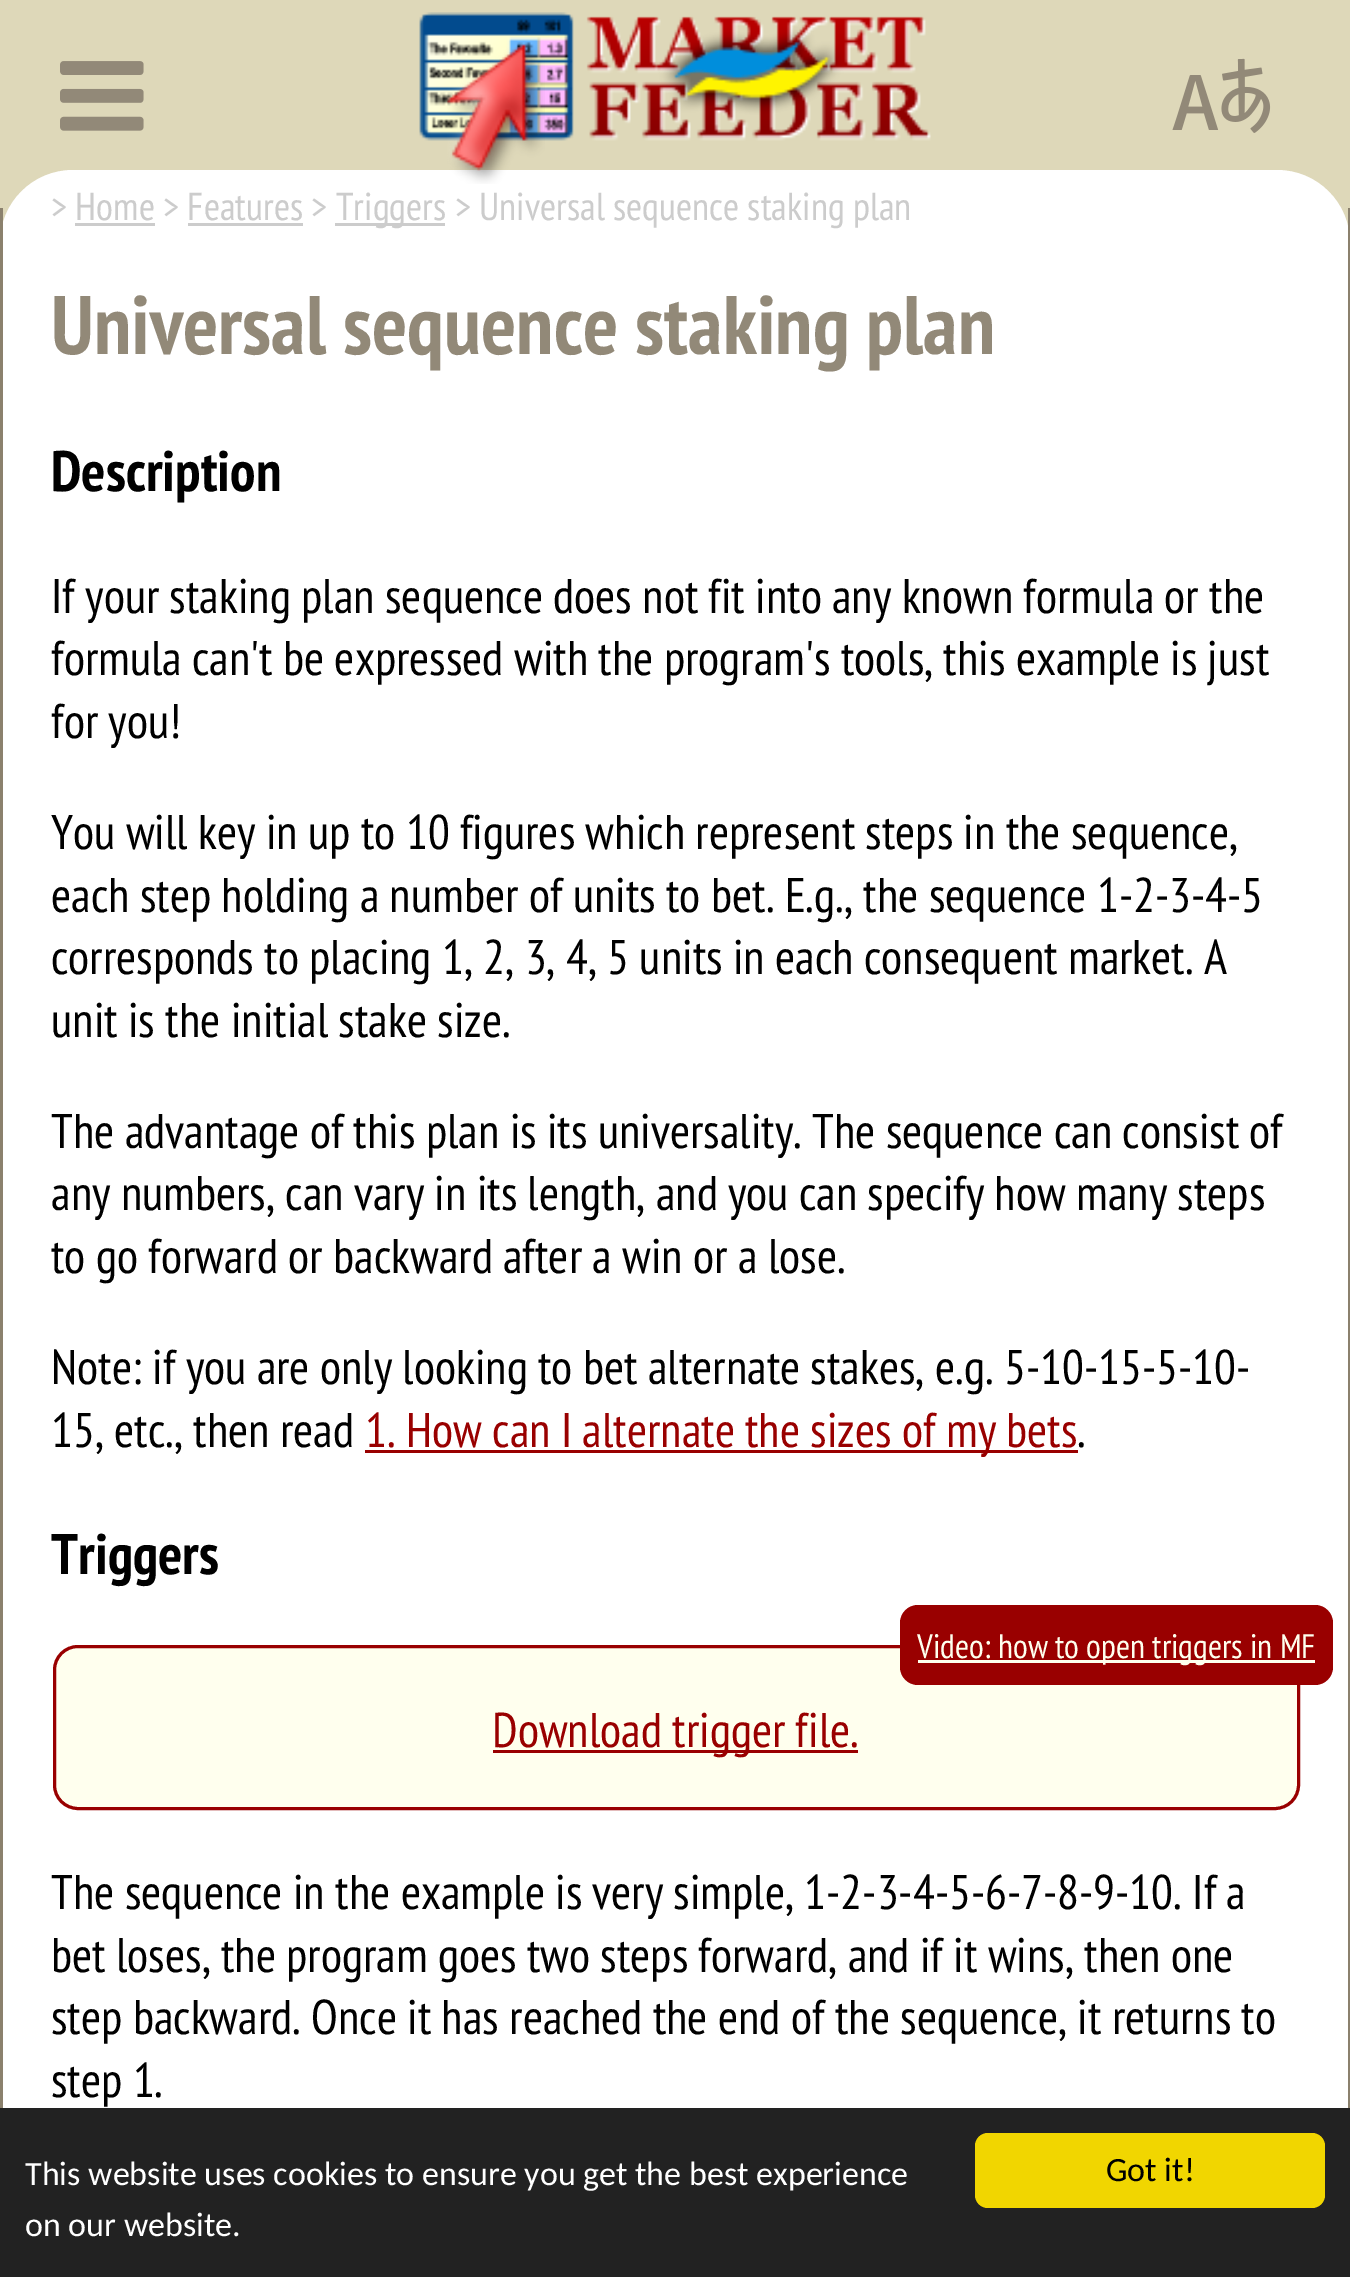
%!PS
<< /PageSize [1350 2277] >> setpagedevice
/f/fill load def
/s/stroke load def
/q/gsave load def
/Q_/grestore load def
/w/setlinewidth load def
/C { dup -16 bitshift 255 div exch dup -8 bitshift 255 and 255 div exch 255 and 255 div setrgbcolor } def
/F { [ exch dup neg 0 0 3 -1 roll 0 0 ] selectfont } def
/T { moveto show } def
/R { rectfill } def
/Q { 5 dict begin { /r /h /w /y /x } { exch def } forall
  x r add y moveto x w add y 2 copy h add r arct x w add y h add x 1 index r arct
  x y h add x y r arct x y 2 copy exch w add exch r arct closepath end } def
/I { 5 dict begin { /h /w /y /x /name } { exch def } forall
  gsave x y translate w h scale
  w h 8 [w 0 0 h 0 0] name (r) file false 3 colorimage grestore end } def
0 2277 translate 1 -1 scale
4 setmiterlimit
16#DED8B9 C
0 0 1350 2277 R
(1.rgb) 60 61 84 70 I
(2.rgb) 419 12 512 129 I
16#FFFFFF C
0 170 1350 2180 73 Q f
(3.rgb) 447 44 98 140 I
(4.rgb) 1172 58 99 75 I
16#8B816D C
1348 208 2 1900 R
0 208 3 1900 R
/PTSansNarrow-Regular 39 F
16#CCCCCC C
(> Home > Features >) 51 220 T
75 223 80 3 R
335 223 110 3 R
(Triggers > Universal sequence staking plan) 336 220 T
188 223 115 3 R
/PTSansNarrow-Bold 82.9 F
16#928978 C
(Universal sequence staking plan) 51 354 T
/PTSansNarrow-Bold 57 F
16#000000 C
(Description) 51 491 T
/PTSansNarrow-Regular 48.75 F
(If your staking plan sequence does not fit into any known formula or the) 51 613 T
(formula can't be expressed with the program's tools, this example is just) 51 675 T
(for you!) 51 738 T
(You will key in up to 10 figures which represent steps in the sequence,) 51 849 T
(each step holding a number of units to bet. E.g., the sequence 1-2-3-4-5) 51 912 T
(corresponds to placing 1, 2, 3, 4, 5 units in each consequent market. A) 51 974 T
(unit is the initial stake size.) 51 1037 T
(The advantage of this plan is its universality. The sequence can consist of) 51 1148 T
(any numbers, can vary in its length, and you can specify how many steps) 51 1210 T
(to go forward or backward after a win or a lose.) 51 1273 T
(Note: if you are only looking to bet alternate stakes, e.g. 5-10-15-5-10-) 51 1384 T
(15, etc., then read) 51 1447 T
16#990000 C
365 1450 713 3 R
(1. How can I alternate the sizes of my bets) 365 1447 T
16#000000 C
(.) 1077 1447 T
/PTSansNarrow-Bold 57 F
(Triggers) 51 1574 T
16#FFFFEE C
54.5 1646.5 1244 162 23.5 Q q f Q_
16#990000 C
3 w
s
900 1605 433 80 18 Q f
16#FFFFEE C
918 1660 397 3 R
/PTSansNarrow-Regular 34.1 F
(Video: how to open triggers in MF) 917 1658 T
16#990000 C
493 1750 365 3 R
/PTSansNarrow-Regular 48.75 F
(Download trigger file.) 492 1747 T
16#000000 C
(The sequence in the example is very simple, 1-2-3-4-5-6-7-8-9-10. If a) 51 1909 T
(bet loses, the program goes two steps forward, and if it wins, then one) 51 1972 T
(step backward. Once it has reached the end of the sequence, it returns to) 51 2034 T
(step 1.) 51 2097 T
16#222222 C
0 2108 1350 169 R
/Carlito-Regular 34 F
16#FFFFFF C
(This website uses cookies to ensure you get the best experience) 25 2185 T
(on our website.) 25 2236 T
16#F1D600 C
975 2133 350 75 13 Q f
16#000000 C
(Got it!) 1106 2181 T
showpage
